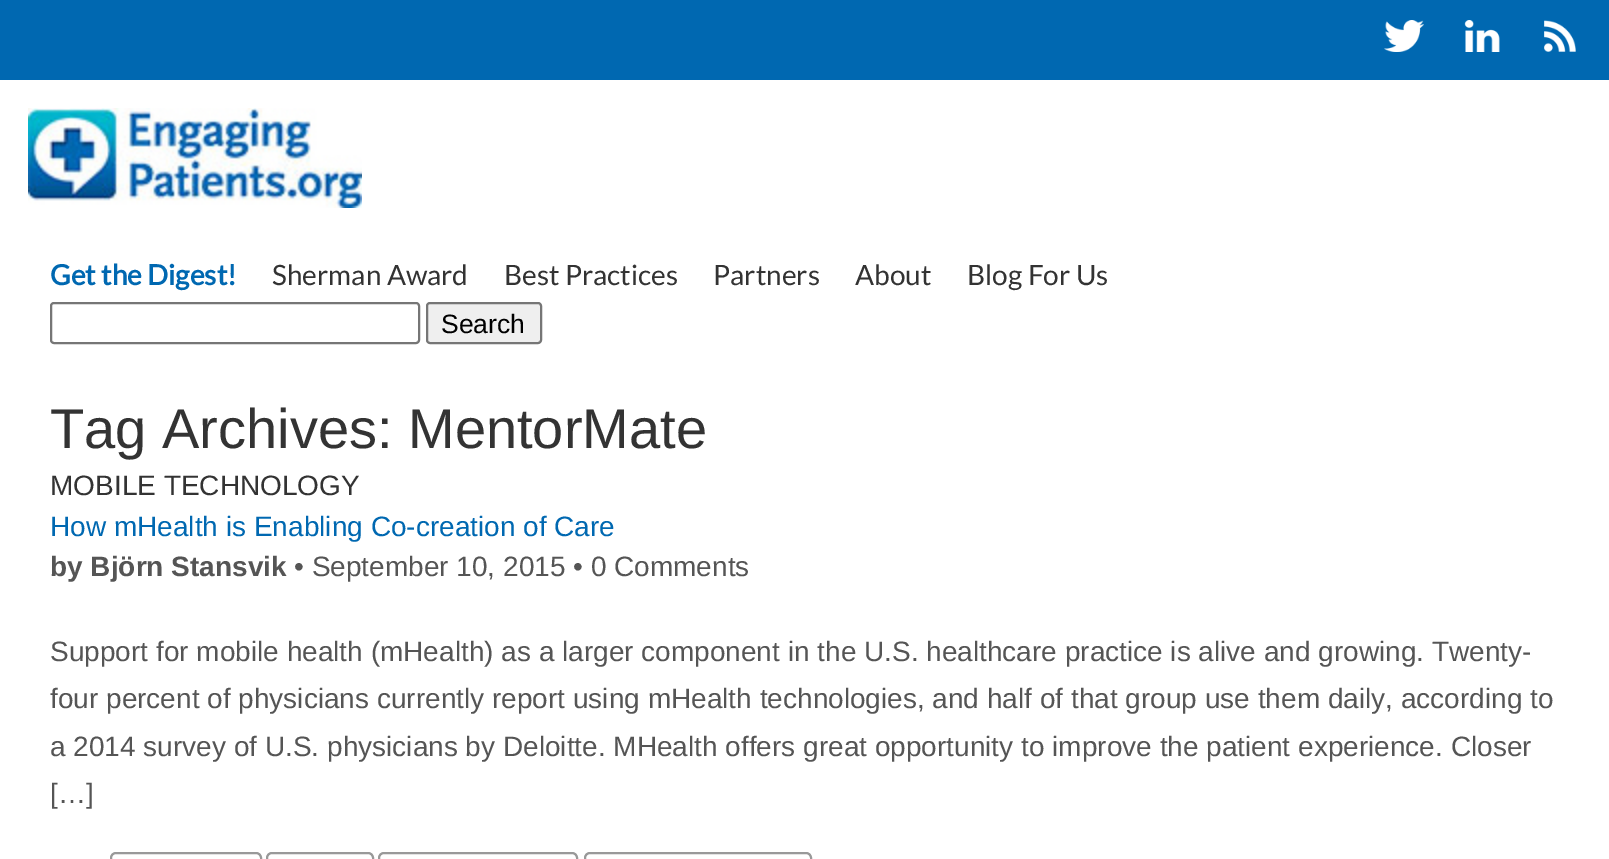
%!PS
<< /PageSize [1609 859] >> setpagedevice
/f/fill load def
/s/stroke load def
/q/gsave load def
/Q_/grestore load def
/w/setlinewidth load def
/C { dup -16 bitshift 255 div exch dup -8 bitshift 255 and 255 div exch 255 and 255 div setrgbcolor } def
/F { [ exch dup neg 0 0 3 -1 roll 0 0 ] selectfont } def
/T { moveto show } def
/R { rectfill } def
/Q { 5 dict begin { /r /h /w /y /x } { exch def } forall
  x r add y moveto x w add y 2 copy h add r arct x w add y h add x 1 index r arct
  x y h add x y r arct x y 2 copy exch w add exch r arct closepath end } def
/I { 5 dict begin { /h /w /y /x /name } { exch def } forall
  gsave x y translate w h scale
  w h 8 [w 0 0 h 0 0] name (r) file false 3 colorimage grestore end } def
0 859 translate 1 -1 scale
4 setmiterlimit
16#FFFFFF C
0 0 1609 859 R
16#0068B1 C
0 0 1609 80 R
(1.rgb) 1384 20 40 32 I
(2.rgb) 1464 20 36 32 I
(3.rgb) 1544 20 32 32 I
(4.rgb) 28 108 334 100 I
/Lato-Bold 28 F
(Get the Digest!) 50 285 T
/Lato-Regular 28 F
16#333333 C
(Sherman Award) 272 285 T
(Best Practices) 504 285 T
(Partners) 713 285 T
(About) 855 285 T
(Blog For Us) 967 285 T
16#767676 C
2 w
51 303 368 40 3 Q s
16#EFEFEF C
427 303 114 40 3 Q q f Q_
16#767676 C
s
/LiberationSans-Regular 26.5 F
16#000000 C
(Search) 441 333 T
/LiberationSans-Regular 56 F
16#333333 C
(Tag Archives: MentorMate) 50 448 T
/LiberationSans-Regular 28 F
(MOBILE TECHNOLOGY) 50 495 T
16#0068B1 C
(How mHealth is Enabling Co-creation of Care) 50 536 T
/LiberationSans-Bold 28 F
16#555555 C
(by Björn Stansvik) 50 576 T
/LiberationSans-Regular 28 F
(• September 10, 2015 • 0 Comments) 294 576 T
(Support for mobile health \(mHealth\) as a larger component in the U.S. healthcare practice is alive and growing. Twenty-) 50 661 T
(four percent of physicians currently report using mHealth technologies, and half of that group use them daily, according to) 50 708 T
(a 2014 survey of U.S. physicians by Deloitte. MHealth offers great opportunity to improve the patient experience. Closer) 50 756 T
([…]) 50 803 T
16#999999 C
111 853 150 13 5 Q s
267 853 106 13 5 Q s
379 853 198 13 5 Q s
585 853 226 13 5 Q s
showpage
